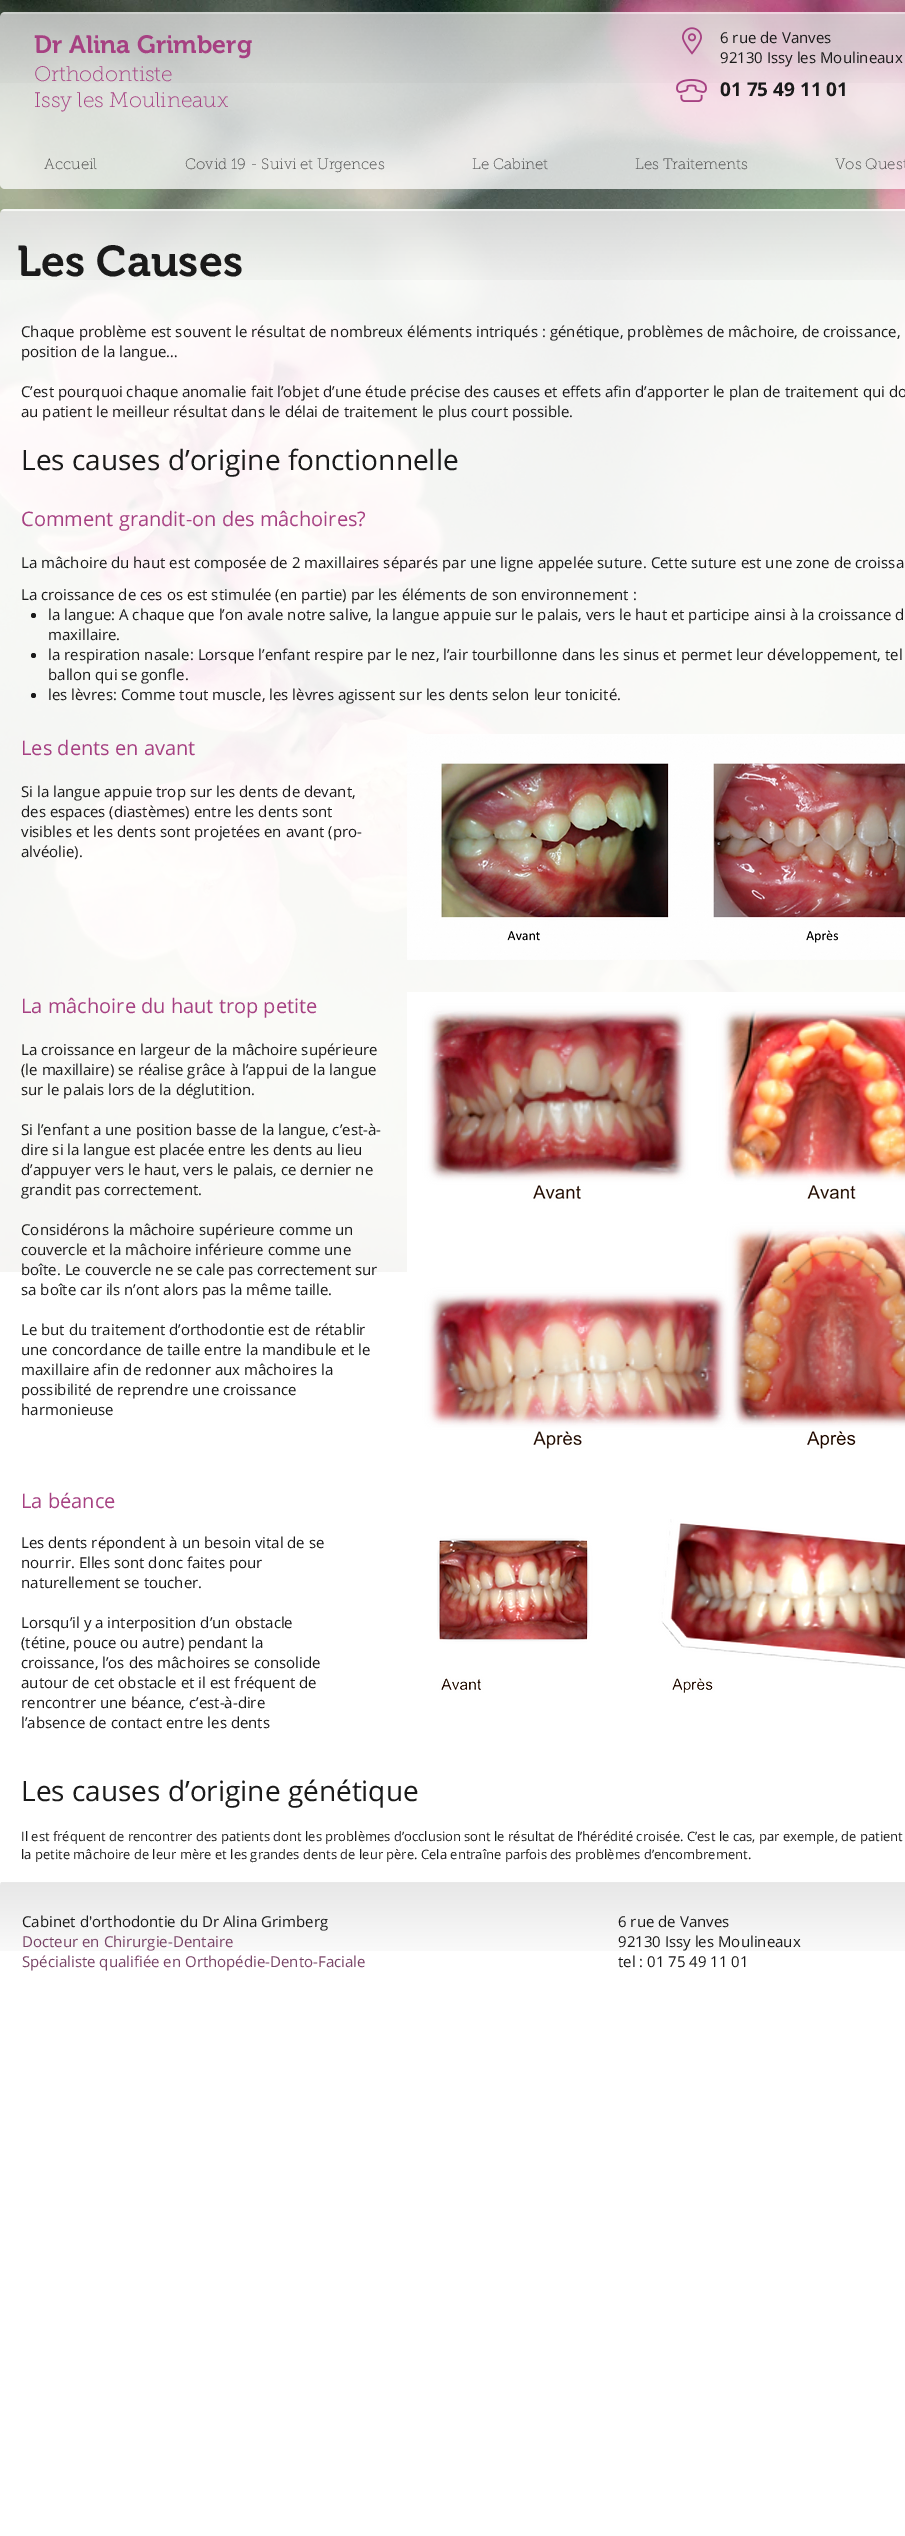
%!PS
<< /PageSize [905 2536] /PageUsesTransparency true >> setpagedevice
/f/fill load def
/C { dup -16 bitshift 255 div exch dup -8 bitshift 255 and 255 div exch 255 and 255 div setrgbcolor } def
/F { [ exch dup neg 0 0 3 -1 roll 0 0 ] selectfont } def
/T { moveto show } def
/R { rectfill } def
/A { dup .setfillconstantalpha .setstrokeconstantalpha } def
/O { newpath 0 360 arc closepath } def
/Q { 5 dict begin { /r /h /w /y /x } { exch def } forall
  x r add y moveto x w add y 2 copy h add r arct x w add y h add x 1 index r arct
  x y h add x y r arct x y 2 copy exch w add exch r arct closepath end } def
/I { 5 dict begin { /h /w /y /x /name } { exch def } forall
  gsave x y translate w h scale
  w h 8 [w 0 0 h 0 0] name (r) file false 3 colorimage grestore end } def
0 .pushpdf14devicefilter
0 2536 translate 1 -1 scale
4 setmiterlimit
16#FFFFFF C
0 0 905 2536 R
(1.rgb) 0 0 905 1272 I
0.75 A
0 12 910 177 5 Q f
1 A
(2.rgb) 0 14 905 69 I
/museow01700-SemiBold 25 F
16#A64182 C
(Dr Alina Grimberg) 34 53 T
/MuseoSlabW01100-Thin 21 F
(Orthodontiste) 34 81 T
(Issy les Moulineaux) 34 107 T
(3.rgb) 682 27 20 28 I
/OpenSans-Regular 15 F
16#1A1A1A C
(6 rue de Vanves) 720 43 T
(92130 Issy les Moulineaux) 720 63 T
/OpenSans-Bold 19 F
(01 75 49 11 01) 720 96 T
(4.rgb) 676 79 31 23 I
/MuseoSlabW01100-Thin 15 F
16#444444 C
(Accueil) 44 169 T
(Covid 19 - Suivi et Urgences) 185 169 T
(Le Cabinet) 472 169 T
(Les Traitements) 635 169 T
(Vos Quest) 835 169 T
0.9 A
16#FFFFFF C
0 209 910 1654 5 Q f
1 A
(5.rgb) 0 211 905 69 I
/museow01700-SemiBold 43 F
16#1A1A1A C
(Les Causes) 17 276 T
/OpenSans-Regular 15 F
(Chaque problème est souvent le résultat de nombreux éléments intriqués : génétique, problèmes de mâchoire, de croissance,) 21 337 T
(position de la langue…) 21 357 T
(C’est pourquoi chaque anomalie fait l’objet d’une étude précise des causes et effets afin d’apporter le plan de traitement qui do) 21 397 T
(au patient le meilleur résultat dans le délai de traitement le plus court possible.) 21 417 T
/OpenSans-Regular 28 F
(Les causes d’origine fonctionnelle) 21 470 T
/OpenSans-Regular 20 F
16#A64182 C
(Comment grandit-on des mâchoires?) 21 526 T
/OpenSans-Regular 15 F
16#1A1A1A C
(La mâchoire du haut est composée de 2 maxillaires séparés par une ligne appelée suture. Cette suture est une zone de croissa) 21 568 T
(La croissance de ces os est stimulée \(en partie\) par les éléments de son environnement :) 21 600 T
33.5 615.5 2.5 O f
(la langue: A chaque que l’on avale notre salive, la langue appuie sur le palais, vers le haut et participe ainsi à la croissance d) 48 620 T
(maxillaire.) 48 640 T
33.5 655.5 2.5 O f
(la respiration nasale: Lorsque l’enfant respire par le nez, l’air tourbillonne dans les sinus et permet leur développement, tel) 48 660 T
(ballon qui se gonfle.) 48 680 T
33.5 695.5 2.5 O f
(les lèvres: Comme tout muscle, les lèvres agissent sur les dents selon leur tonicité.) 48 700 T
/OpenSans-Regular 20 F
16#A64182 C
(Les dents en avant) 21 755 T
/OpenSans-Regular 15 F
16#1A1A1A C
(Si la langue appuie trop sur les dents de devant,) 21 797 T
(des espaces \(diastèmes\) entre les dents sont) 21 817 T
(visibles et les dents sont projetées en avant \(pro-) 21 837 T
(alvéolie\).) 21 857 T
(6.rgb) 407 734 498 226 I
/OpenSans-Regular 20 F
16#A64182 C
(La mâchoire du haut trop petite) 21 1013 T
/OpenSans-Regular 15 F
16#1A1A1A C
(La croissance en largeur de la mâchoire supérieure) 21 1055 T
(\(le maxillaire\) se réalise grâce à l’appui de la langue) 21 1075 T
(sur le palais lors de la déglutition.) 21 1095 T
(Si l’enfant a une position basse de la langue, c’est-à-) 21 1135 T
(dire si la langue est placée entre les dents au lieu) 21 1155 T
(d’appuyer vers le haut, vers le palais, ce dernier ne) 21 1175 T
(grandit pas correctement.) 21 1195 T
(Considérons la mâchoire supérieure comme un) 21 1235 T
(couvercle et la mâchoire inférieure comme une) 21 1255 T
(boîte. Le couvercle ne se cale pas correctement sur) 21 1275 T
(sa boîte car ils n’ont alors pas la même taille.) 21 1295 T
(Le but du traitement d’orthodontie est de rétablir) 21 1335 T
(une concordance de taille entre la mandibule et le) 21 1355 T
(maxillaire afin de redonner aux mâchoires la) 21 1375 T
(possibilité de reprendre une croissance) 21 1395 T
(harmonieuse) 21 1415 T
(7.rgb) 407 992 498 457 I
/OpenSans-Regular 20 F
16#A64182 C
(La béance) 21 1508 T
/OpenSans-Regular 15 F
16#1A1A1A C
(Les dents répondent à un besoin vital de se) 21 1548 T
(nourrir. Elles sont donc faites pour) 21 1568 T
(naturellement se toucher.) 21 1588 T
(Lorsqu’il y a interposition d’un obstacle) 21 1628 T
(\(tétine, pouce ou autre\) pendant la) 21 1648 T
(croissance, l’os des mâchoires se consolide) 21 1668 T
(autour de cet obstacle et il est fréquent de) 21 1688 T
(rencontrer une béance, c’est-à-dire) 21 1708 T
(l’absence de contact entre les dents) 21 1728 T
(8.rgb) 437 1519 468 174 I
/OpenSans-Regular 28 F
(Les causes d’origine génétique) 21 1801 T
/OpenSans-Regular 13 F
(Il est fréquent de rencontrer des patients dont les problèmes d’occlusion sont le résultat de l’hérédité croisée. C’est le cas, par exemple, de patient) 21 1841 T
(la petite mâchoire de leur mère et les grandes dents de leur père. Cela entraîne parfois des problèmes d’encombrement.) 21 1859 T
(9.rgb) 0 1882 905 69 I
/OpenSans-Regular 15 F
(Cabinet d'orthodontie du Dr Alina Grimberg) 22 1927 T
16#794567 C
(Docteur en Chirurgie-Dentaire) 22 1947 T
(Spécialiste qualifiée en Orthopédie-Dento-Faciale) 22 1967 T
16#1A1A1A C
(6 rue de Vanves) 618 1927 T
(92130 Issy les Moulineaux) 618 1947 T
(tel : 01 75 49 11 01) 618 1967 T
.poppdf14devicefilter showpage
